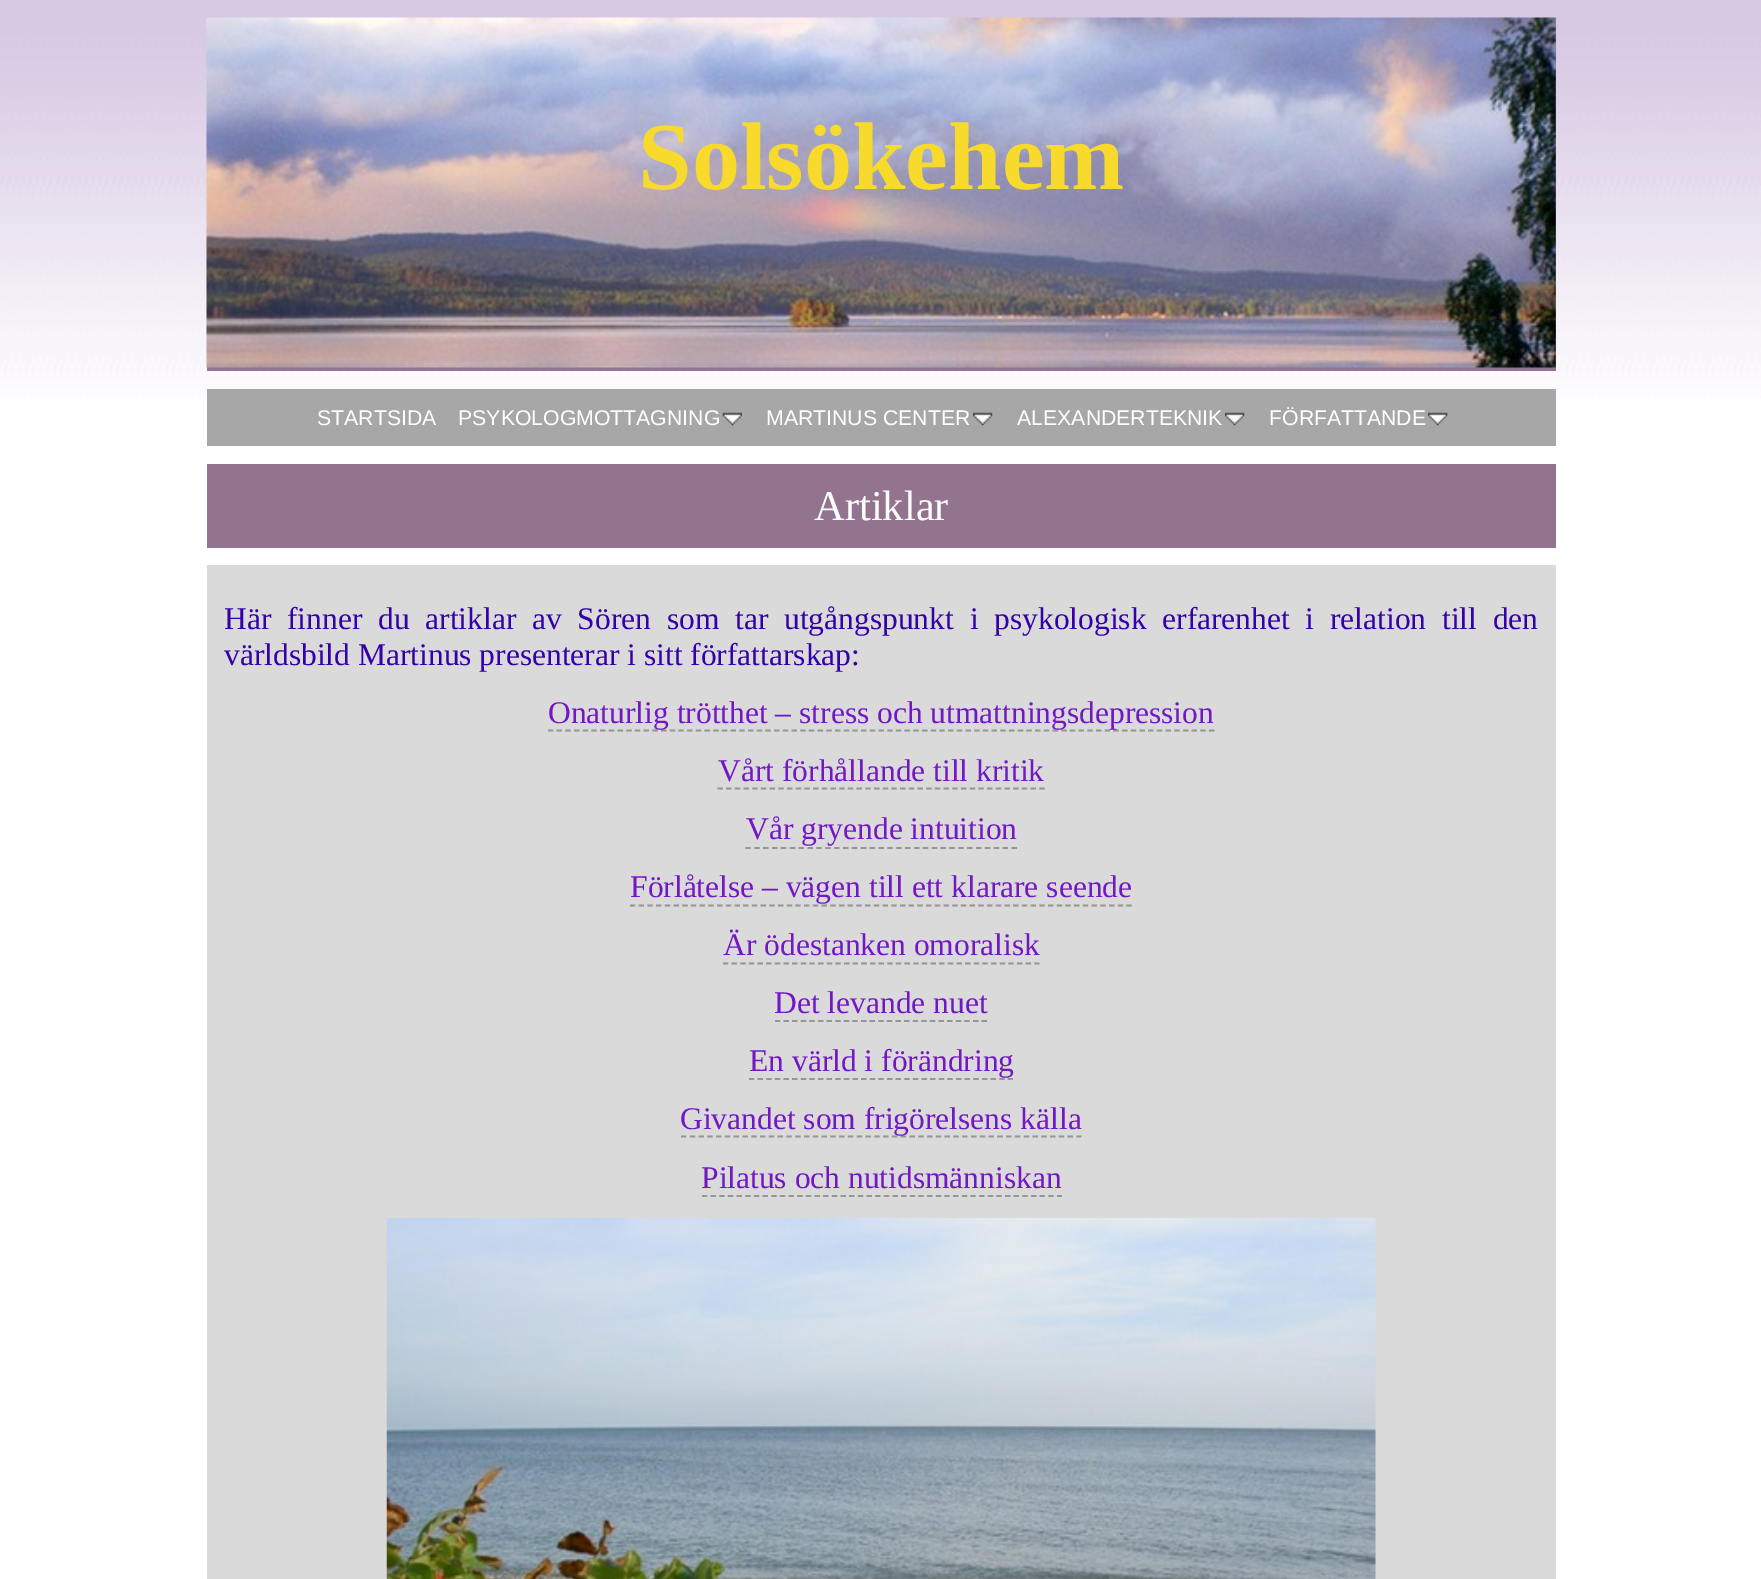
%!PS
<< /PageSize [1761 1579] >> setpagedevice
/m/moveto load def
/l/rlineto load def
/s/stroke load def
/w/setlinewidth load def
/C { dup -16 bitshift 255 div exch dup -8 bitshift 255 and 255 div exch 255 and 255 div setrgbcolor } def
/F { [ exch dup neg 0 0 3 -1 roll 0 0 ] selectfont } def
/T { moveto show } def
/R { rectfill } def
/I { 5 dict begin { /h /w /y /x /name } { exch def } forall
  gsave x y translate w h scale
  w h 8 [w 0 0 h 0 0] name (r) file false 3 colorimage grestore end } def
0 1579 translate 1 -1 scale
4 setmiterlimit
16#FFFFFF C
0 0 1761 1579 R
(1.rgb) 0 0 1761 399 I
16#93748F C
207 18 1349 353 R
(2.rgb) 206 17 1350 351 I
/LiberationSerif-Bold 96.25 F
16#F7DA2C C
(Solsökehem) 638 189 T
16#A7A7A7 C
207 389 1349 57 R
/LiberationSans-Regular 21.25 F
16#FFFFFF C
(STARTSIDA) 317 425 T
(PSYKOLOGMOTTAGNING) 458 425 T
(3.rgb) 722 412 20 14 I
(MARTINUS CENTER) 766 425 T
(4.rgb) 973 412 20 14 I
(ALEXANDERTEKNIK) 1017 425 T
(5.rgb) 1225 412 20 14 I
(FÖRFATTANDE) 1269 425 T
(4.rgb) 1428 412 20 14 I
16#DADADA C
207 565 1349 1014 R
16#93748F C
207 464 1349 84 R
/LiberationSerif-Regular 42.5 F
16#FFFFFF C
(Artiklar) 814 520 T
/LiberationSerif-Regular 31.5 F
16#3400A9 C
224 629 m 7.9 0 32 (Här finner du artiklar av Sören som tar utgångspunkt i psykologisk erfarenhet i relation till den) widthshow
(världsbild Martinus presenterar i sitt författarskap:) 224 665 T
16#969696 C
1.8 w
[5.25 3.45] 0 setdash
548 730.5 m 666.5 0 l s
16#7316C5 C
(Onaturlig trötthet – stress och utmattningsdepression) 548 723 T
(Vårt förhållande till kritik) 718 781 T
16#969696 C
717.5 788.5 m 327.5 0 l s
16#7316C5 C
(Vår gryende intuition) 746 839 T
16#969696 C
[5.25 3.62] 0 setdash
745.5 848 m 271.5 0 l s
16#7316C5 C
(Förlåtelse – vägen till ett klarare seende) 630 897 T
16#969696 C
[5.25 3.46] 0 setdash
630 905.5 m 502 0 l s
16#7316C5 C
(Är ödestanken omoralisk) 723 955 T
16#969696 C
[5.25 3.4] 0 setdash
723 963.5 m 316.5 0 l s
16#7316C5 C
(Det levande nuet) 774 1013 T
16#969696 C
[5.25 3.36] 0 setdash
775 1021 m 212 0 l s
16#7316C5 C
(En värld i förändring) 749 1071 T
16#969696 C
[5.25 3.38] 0 setdash
749 1079 m 264 0 l s
[5.25 3.54] 0 setdash
681 1136.5 m 400.5 0 l s
16#7316C5 C
(Givandet som frigörelsens källa) 680 1129 T
(Pilatus och nutidsmänniskan) 701 1188 T
16#969696 C
[5.25 3.41] 0 setdash
702 1196 m 360 0 l s
(6.rgb) 386 1218 990 361 I
showpage
